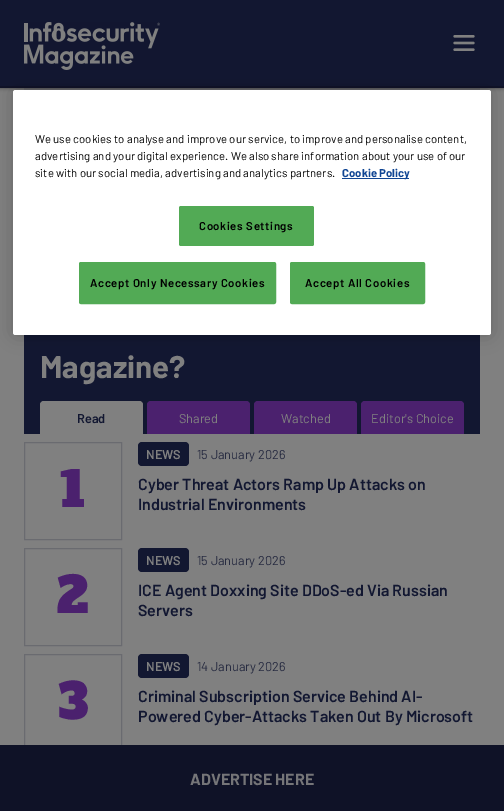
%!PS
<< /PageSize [504 811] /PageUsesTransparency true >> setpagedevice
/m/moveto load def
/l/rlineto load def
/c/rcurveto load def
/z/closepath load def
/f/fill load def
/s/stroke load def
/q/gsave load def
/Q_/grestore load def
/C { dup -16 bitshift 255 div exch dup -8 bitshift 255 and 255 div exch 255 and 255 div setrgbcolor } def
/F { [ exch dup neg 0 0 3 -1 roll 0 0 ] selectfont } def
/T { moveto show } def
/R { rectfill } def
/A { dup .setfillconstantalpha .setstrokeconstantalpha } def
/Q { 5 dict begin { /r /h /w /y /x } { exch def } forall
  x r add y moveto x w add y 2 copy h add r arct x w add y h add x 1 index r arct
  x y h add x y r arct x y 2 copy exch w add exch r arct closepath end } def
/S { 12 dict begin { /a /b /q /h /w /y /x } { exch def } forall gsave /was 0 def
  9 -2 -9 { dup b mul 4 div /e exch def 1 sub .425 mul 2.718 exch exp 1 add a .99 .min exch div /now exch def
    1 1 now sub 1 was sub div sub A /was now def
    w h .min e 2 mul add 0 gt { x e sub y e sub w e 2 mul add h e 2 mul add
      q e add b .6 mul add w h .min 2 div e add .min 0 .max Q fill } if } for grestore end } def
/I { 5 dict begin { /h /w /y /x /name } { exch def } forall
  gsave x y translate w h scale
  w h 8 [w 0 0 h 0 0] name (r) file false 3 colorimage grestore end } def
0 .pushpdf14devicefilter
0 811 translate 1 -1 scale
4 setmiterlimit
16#808080 C
0 0 504 811 R
16#757578 C
24 88 456 2 R
16#000000 C
0 0 504 88 0 2 .5 S
16#121731 C
0 0 504 86 R
16#0F1227 C
0 86 504 2 R
(1.rgb) 24 22 136 48 I
(2.rgb) 453 35 22 16 I
16#121731 C
24 335 456 99 R
16#000000 C
13 90 478 245 2.5 9 .2 S
16#FFFFFF C
13 90 478 245 2.5 Q f
/Barlow-Regular 11.4 F
16#000000 C
(We use cookies to analyse and improve our service, to improve and personalise content,) 35 143 T
(advertising and your digital experience. We also share information about your use of our) 35 160 T
(site with our social media, advertising and analytics partners.) 35 177 T
16#104593 C
342 178 67 1 R
/Barlow-Bold 11.4 F
(Cookie Policy) 342 177 T
16#52AA55 C
179 206 135 40 2 Q f
/Barlow-SemiBold 11.4 F
16#000000 C
199 230 m .6 0 (Cookies Settings) ashow
16#52AA55 C
79.5 262.5 196 41 1.5 Q q f Q_
s
16#000000 C
90 287 m .6 0 (Accept Only Necessary Cookies) ashow
16#52AA55 C
290.5 262.5 134 41 1.5 Q q f Q_
s
16#000000 C
305 287 m .6 0 (Accept All Cookies) ashow
/Barlow-Bold 31.25 F
16#808080 C
(Magazine?) 40 378 T
44 401 m 95 0 l 2 0 4 2 4 4 c 0 29 l -103 0 l 0 -29 l 0 -2 2 -4 4 -4 c z f
44 401 m 95 0 l 2 0 4 2 4 4 c 0 29 l -103 0 l 0 -29 l 0 -2 2 -4 4 -4 c z 44 402 m 95 0 l 2 0 3 1 3 3 c 0 29 l -101 0 l 0 -29 l 0 -2 1 -3 3 -3 c z eofill
/Barlow-SemiBold 12.75 F
16#121731 C
(Read) 77 423 T
16#4B216E C
151 401 m 95 0 l 2 0 4 2 4 4 c 0 29 l -103 0 l 0 -29 l 0 -2 2 -4 4 -4 c z f
151 401 m 95 0 l 2 0 4 2 4 4 c 0 29 l -103 0 l 0 -29 l 0 -2 2 -4 4 -4 c z 151 402 m 95 0 l 2 0 3 1 3 3 c 0 29 l -101 0 l 0 -29 l 0 -2 1 -3 3 -3 c z eofill
/Barlow-Regular 12.75 F
16#808080 C
(Shared) 179 423 T
16#4B216E C
258 401 m 95 0 l 2 0 4 2 4 4 c 0 29 l -103 0 l 0 -29 l 0 -2 2 -4 4 -4 c z f
258 401 m 95 0 l 2 0 4 2 4 4 c 0 29 l -103 0 l 0 -29 l 0 -2 2 -4 4 -4 c z 258 402 m 95 0 l 2 0 3 1 3 3 c 0 29 l -101 0 l 0 -29 l 0 -2 1 -3 3 -3 c z eofill
16#808080 C
(Watched) 281 423 T
16#4B216E C
365 401 m 95 0 l 2 0 4 2 4 4 c 0 29 l -103 0 l 0 -29 l 0 -2 2 -4 4 -4 c z f
365 401 m 95 0 l 2 0 4 2 4 4 c 0 29 l -103 0 l 0 -29 l 0 -2 2 -4 4 -4 c z 365 402 m 95 0 l 2 0 3 1 3 3 c 0 29 l -101 0 l 0 -29 l 0 -2 1 -3 3 -3 c z eofill
16#808080 C
(Editor's Choice) 371 423 T
16#6A6B70 C
24.5 442.5 97 97 rectstroke
/AlfaSlabOne-Regular 49 F
16#4B216E C
(1) 60 507 T
16#121731 C
138 442 51 24 4 Q f
/Barlow-SemiBold 12.75 F
16#808080 C
(NEWS) 146 459 T
/Barlow-Regular 12.75 F
16#282C41 C
(15 January 2026) 197 459 T
/Barlow-SemiBold 16 F
16#121731 C
(Cyber Threat Actors Ramp Up Attacks on) 138 490 T
(Industrial Environments) 138 510 T
16#6A6B70 C
24.5 548.5 97 97 rectstroke
/AlfaSlabOne-Regular 49 F
16#4B216E C
(2) 57 613 T
16#121731 C
138 548 51 24 4 Q f
/Barlow-SemiBold 12.75 F
16#808080 C
(NEWS) 146 565 T
/Barlow-Regular 12.75 F
16#282C41 C
(15 January 2026) 197 565 T
/Barlow-SemiBold 16 F
16#121731 C
(ICE Agent Doxxing Site DDoS-ed Via Russian) 138 596 T
(Servers) 138 616 T
16#6A6B70 C
24.5 654.5 97 97 rectstroke
/AlfaSlabOne-Regular 49 F
16#4B216E C
(3) 58 719 T
16#121731 C
138 654 51 24 4 Q f
/Barlow-SemiBold 12.75 F
16#808080 C
(NEWS) 146 671 T
/Barlow-Regular 12.75 F
16#282C41 C
(14 January 2026) 197 671 T
/Barlow-SemiBold 16 F
16#121731 C
(Criminal Subscription Service Behind AI-) 138 702 T
(Powered Cyber-Attacks Taken Out By Microsoft) 138 722 T
16#0F1227 C
0 745 504 66 R
/Barlow-Bold 16 F
16#757578 C
(ADVERTISE HERE) 190 785 T
.poppdf14devicefilter showpage
